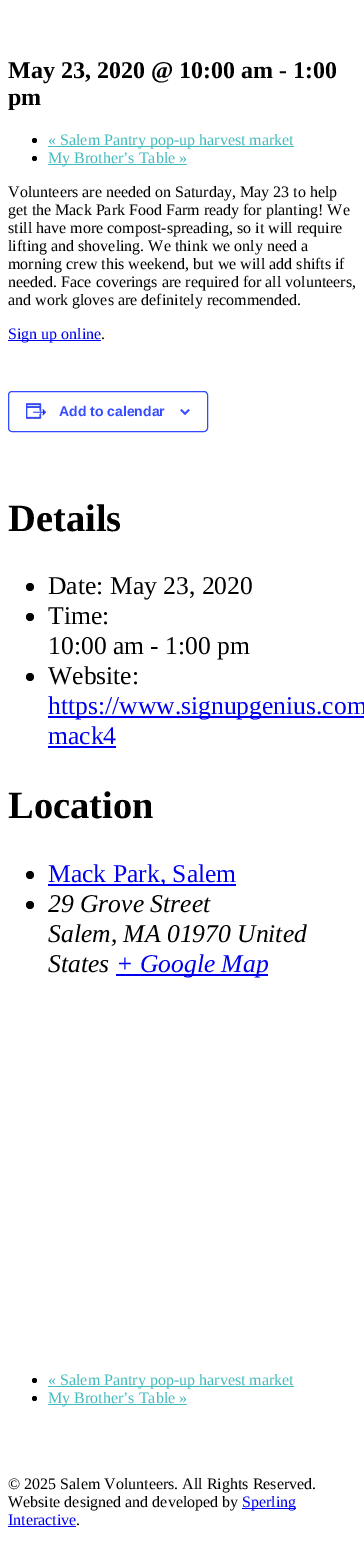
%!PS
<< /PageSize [364 1545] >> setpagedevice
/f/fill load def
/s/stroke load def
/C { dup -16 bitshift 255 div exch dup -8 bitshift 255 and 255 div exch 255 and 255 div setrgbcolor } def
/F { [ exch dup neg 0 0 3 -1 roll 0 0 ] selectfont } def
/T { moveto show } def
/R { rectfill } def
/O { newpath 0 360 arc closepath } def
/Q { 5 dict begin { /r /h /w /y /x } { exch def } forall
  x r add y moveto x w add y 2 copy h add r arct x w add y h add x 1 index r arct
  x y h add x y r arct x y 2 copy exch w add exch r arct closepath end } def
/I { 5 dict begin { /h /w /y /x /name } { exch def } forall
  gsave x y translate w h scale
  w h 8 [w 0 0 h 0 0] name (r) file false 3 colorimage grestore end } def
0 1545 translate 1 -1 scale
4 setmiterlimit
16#FFFFFF C
0 0 364 1545 R
/LiberationSerif-Bold 24 F
16#000000 C
(May 23, 2020 @ 10:00 am - 1:00) 8 78 T
(pm) 8 105 T
34.5 140.5 2.5 O f
16#44BBBD C
48 146 246 1 R
/LiberationSerif-Regular 16 F
(« Salem Pantry pop-up harvest market) 48 145 T
16#000000 C
34.5 158.5 2.5 O f
16#44BBBD C
48 164 139 1 R
(My Brother’s Table ») 48 163 T
16#000000 C
(Volunteers are needed on Saturday, May 23 to help) 8 197 T
(get the Mack Park Food Farm ready for planting! We) 8 215 T
(still have more compost-spreading, so it will require) 8 233 T
(lifting and shoveling. We think we only need a) 8 251 T
(morning crew this weekend, but we will add shifts if) 8 269 T
(needed. Face coverings are required for all volunteers,) 8 287 T
(and work gloves are definitely recommended.) 8 305 T
16#0000EE C
8 340 93 1 R
(Sign up online) 8 339 T
16#000000 C
(.) 101 339 T
16#334AFF C
8.5 391.5 199 40 3.5 Q s
(1.rgb) 26 403 21 16 I
/LiberationSans-Bold 14 F
(Add to calendar) 59 416 T
(2.rgb) 180 409 10 6 I
/LiberationSerif-Bold 38.5 F
16#000000 C
(Details) 8 531 T
30 587 4 O f
/LiberationSerif-Regular 25.6 F
(Date: May 23, 2020) 48 594 T
30 617 4 O f
(Time:) 48 624 T
(10:00 am - 1:00 pm) 48 654 T
30 677 4 O f
(Website:) 48 684 T
16#0000EE C
48 716 316 2 R
(https://www.signupgenius.com) 48 714 T
(mack4) 48 744 T
48 746 68 2 R
/LiberationSerif-Bold 38.5 F
16#000000 C
(Location) 8 818 T
30 875 4 O f
16#0000EE C
48 884 188 2 R
/LiberationSerif-Regular 25.6 F
(Mack Park, Salem) 48 882 T
16#000000 C
30 905 4 O f
/LiberationSerif-Italic 25.6 F
(29 Grove Street) 48 912 T
(Salem, MA 01970 United) 48 942 T
(States) 48 972 T
16#0000EE C
116 974 152 2 R
(+ Google Map) 116 972 T
16#000000 C
34.5 1380.5 2.5 O f
16#44BBBD C
48 1386 246 1 R
/LiberationSerif-Regular 16 F
(« Salem Pantry pop-up harvest market) 48 1385 T
16#000000 C
34.5 1398.5 2.5 O f
16#44BBBD C
48 1404 139 1 R
(My Brother’s Table ») 48 1403 T
16#000000 C
(© 2025 Salem Volunteers. All Rights Reserved.) 8 1489 T
(Website designed and developed by) 8 1507 T
16#0000EE C
242 1508 54 1 R
(Sperling) 242 1507 T
(Interactive) 8 1525 T
8 1526 68 1 R
16#000000 C
(.) 76 1525 T
showpage
